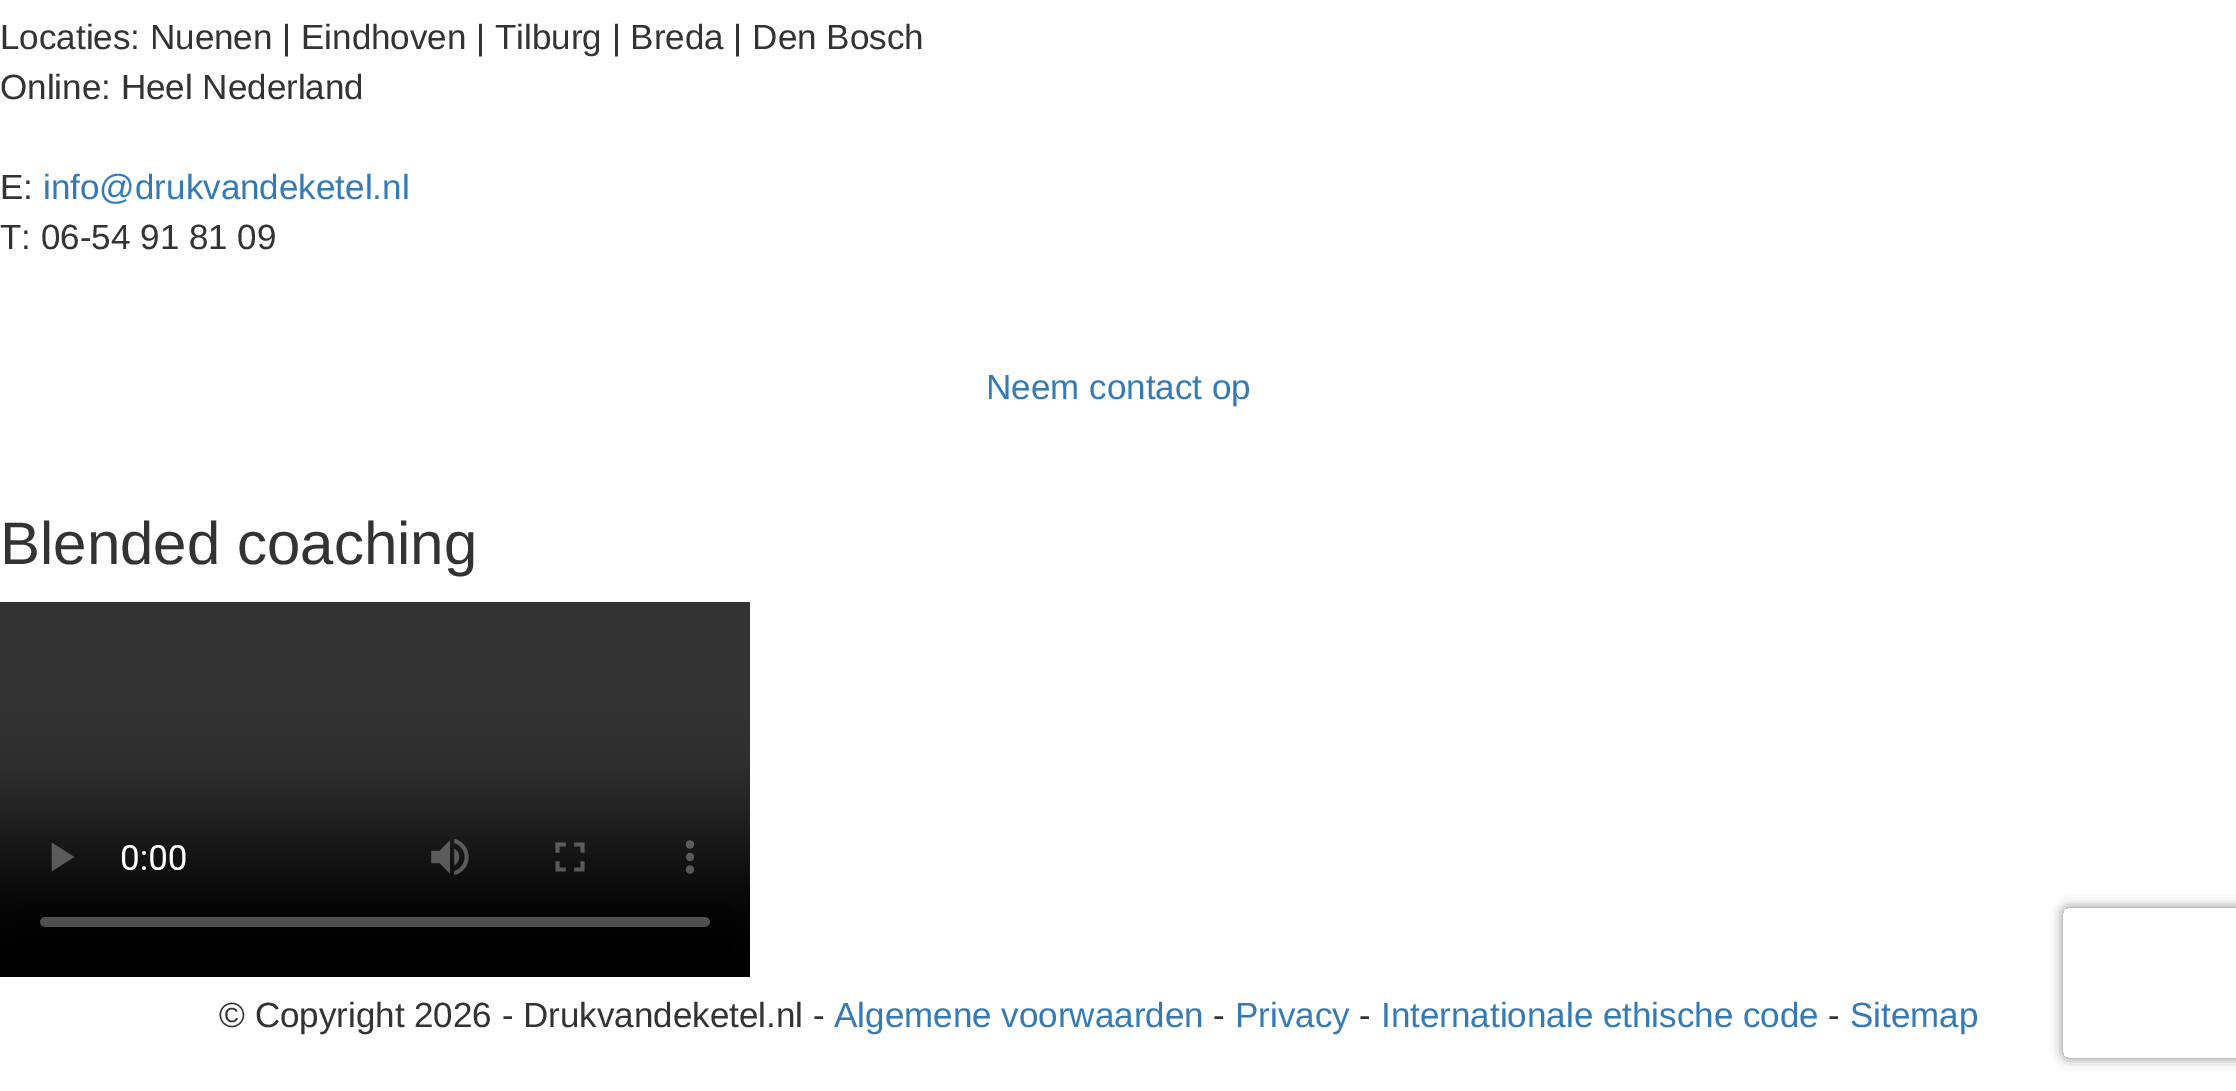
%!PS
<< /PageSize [2236 1091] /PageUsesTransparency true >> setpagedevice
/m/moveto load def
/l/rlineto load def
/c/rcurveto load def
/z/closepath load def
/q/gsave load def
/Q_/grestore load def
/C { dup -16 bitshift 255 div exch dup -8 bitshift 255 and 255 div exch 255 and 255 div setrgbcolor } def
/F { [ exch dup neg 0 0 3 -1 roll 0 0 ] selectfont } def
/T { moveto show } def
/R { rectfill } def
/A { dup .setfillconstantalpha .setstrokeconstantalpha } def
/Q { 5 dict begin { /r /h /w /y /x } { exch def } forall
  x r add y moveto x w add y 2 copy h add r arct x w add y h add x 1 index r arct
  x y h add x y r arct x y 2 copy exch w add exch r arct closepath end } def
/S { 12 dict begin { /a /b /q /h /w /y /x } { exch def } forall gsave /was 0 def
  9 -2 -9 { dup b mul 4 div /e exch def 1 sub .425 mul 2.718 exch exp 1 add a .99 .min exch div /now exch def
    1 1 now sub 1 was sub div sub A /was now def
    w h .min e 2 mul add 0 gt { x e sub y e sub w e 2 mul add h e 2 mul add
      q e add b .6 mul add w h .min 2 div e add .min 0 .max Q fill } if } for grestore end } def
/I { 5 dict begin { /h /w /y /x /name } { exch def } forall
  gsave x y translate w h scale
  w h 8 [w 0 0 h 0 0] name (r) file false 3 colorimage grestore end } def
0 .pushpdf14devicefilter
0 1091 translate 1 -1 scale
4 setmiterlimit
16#FFFFFF C
0 0 2236 1091 R
/LiberationSans-Regular 35 F
16#333333 C
(Locaties: Nuenen | Eindhoven | Tilburg | Breda | Den Bosch) 0 49 T
(Online: Heel Nederland) 0 99 T
(E:) 0 199 T
16#337AB7 C
(info@drukvandeketel.nl) 43 199 T
16#333333 C
(T: 06-54 91 81 09) 0 249 T
16#337AB7 C
(Neem contact op) 986 399 T
/LiberationSans-Regular 60 F
16#333333 C
(Blended coaching) 0 564 T
(1.rgb) 0 602 750 375 I
/LiberationSans-Regular 35 F
(© Copyright 2026 - Drukvandeketel.nl -) 219 1027 T
16#337AB7 C
(Algemene voorwaarden) 834 1027 T
16#333333 C
(-) 1213 1027 T
16#337AB7 C
(Privacy) 1235 1027 T
16#333333 C
(-) 1359 1027 T
16#337AB7 C
(Internationale ethische code) 1381 1027 T
16#333333 C
(-) 1828 1027 T
16#337AB7 C
(Sitemap) 1850 1027 T
q
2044 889 m 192 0 l 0 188 l -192 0 l z 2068 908 m 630 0 l 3 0 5 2 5 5 c 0 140 l 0 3 -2 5 -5 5 c -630 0 l -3 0 -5 -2 -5 -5 c 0 -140 l 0 -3 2 -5 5 -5 c z eoclip newpath
16#808080 C
2063 908 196 150 5 6 1 S
Q_
.poppdf14devicefilter showpage
